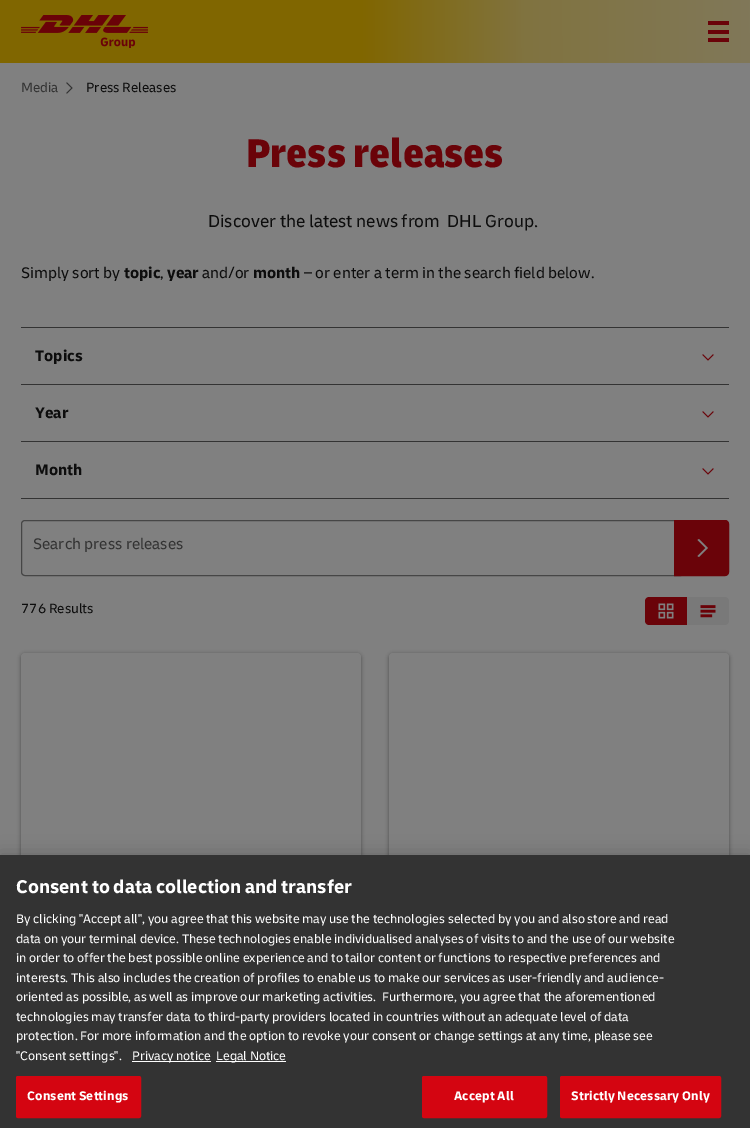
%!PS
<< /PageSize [750 1128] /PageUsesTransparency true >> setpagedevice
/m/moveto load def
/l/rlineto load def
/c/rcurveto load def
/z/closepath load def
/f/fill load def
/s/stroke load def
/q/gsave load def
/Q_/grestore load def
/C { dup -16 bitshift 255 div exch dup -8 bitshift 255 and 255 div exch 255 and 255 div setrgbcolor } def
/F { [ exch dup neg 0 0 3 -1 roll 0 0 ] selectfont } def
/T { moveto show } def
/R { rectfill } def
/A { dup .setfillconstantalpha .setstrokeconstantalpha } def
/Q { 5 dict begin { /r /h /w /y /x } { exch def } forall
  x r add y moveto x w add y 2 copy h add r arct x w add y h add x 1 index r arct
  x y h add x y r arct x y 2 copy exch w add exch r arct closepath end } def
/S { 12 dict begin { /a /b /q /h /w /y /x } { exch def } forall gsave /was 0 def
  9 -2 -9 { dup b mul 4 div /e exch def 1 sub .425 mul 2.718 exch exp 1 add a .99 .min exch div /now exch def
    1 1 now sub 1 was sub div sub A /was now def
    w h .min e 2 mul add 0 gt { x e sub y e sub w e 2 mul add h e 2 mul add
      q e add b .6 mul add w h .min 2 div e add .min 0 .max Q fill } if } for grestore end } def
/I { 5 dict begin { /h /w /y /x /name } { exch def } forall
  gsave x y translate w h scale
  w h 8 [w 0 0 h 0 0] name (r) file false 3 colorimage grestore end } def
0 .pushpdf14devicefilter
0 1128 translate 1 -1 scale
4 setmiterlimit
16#808080 C
0 0 750 1128 R
q 0 0 m 750 0 l 0 63 l -750 0 l z clip newpath
<< /ShadingType 2 /ColorSpace /DeviceRGB /Coords [0 32 750 31] /Extend [true true] /Function << /FunctionType 3 /Domain [0 1] /Functions [<< /FunctionType 2 /Domain [0 1] /C0 [.502 .4 0] /C1 [.502 .4 0] /N 1 >> << /FunctionType 2 /Domain [0 1] /C0 [.502 .4 0] /C1 [.502 .451 .251] /N 1 >> << /FunctionType 2 /Domain [0 1] /C0 [.502 .451 .251] /C1 [.502 .471 .349] /N 1 >>] /Bounds [.48 .7] /Encode [0 1 0 1 0 1] >> >> shfill Q_
(1.rgb) 21 15 127 33 I
16#6A0309 C
708 21 21 4 R
708 30 21 4 R
708 38 21 4 R
/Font-Regular 14 F
16#333333 C
(Media) 21 92 T
(2.rgb) 66 82 7 12 I
16#0D0D0D C
(Press Releases) 86 92 T
/Font-ExtraBold 42 F
16#6A0309 C
(Press releases) 246 167 T
/Font-Regular 18 F
16#0D0D0D C
(Discover the latest news from  DHL Group.) 208 227 T
/Font-Regular 16 F
(Simply sort by) 21 278 T
/Font-Bold 16 F
(topic) 124 278 T
/Font-Regular 16 F
(,) 160 278 T
/Font-Bold 16 F
(year) 167 278 T
/Font-Regular 16 F
(and/or) 202 278 T
/Font-Bold 16 F
(month) 253 278 T
/Font-Regular 16 F
(– or enter a term in the search field below.) 304 278 T
16#333333 C
21 327 708 1 R
/Font-Bold 16 F
16#0D0D0D C
(Topics) 35 361 T
(3.rgb) 702 354 12 7 I
16#333333 C
21 384 708 1 R
16#0D0D0D C
(Year) 35 418 T
(3.rgb) 702 411 12 7 I
16#333333 C
21 441 708 1 R
21 498 708 1 R
16#0D0D0D C
(Month) 35 475 T
(3.rgb) 702 468 12 7 I
16#464646 C
25 520.5 m 655.5 0 l 0 55 l -655.5 0 l -2 0 -3.5 -1.5 -3.5 -3.5 c 0 -48 l 0 -2 1.5 -3.5 3.5 -3.5 c z s
16#6A0309 C
674.5 520.5 m 50.5 0 l 2 0 3.5 1.5 3.5 3.5 c 0 48 l 0 2 -1.5 3.5 -3.5 3.5 c -50.5 0 l z q f Q_
s
16#808080 C
699 557 m -1.5 -1 l 8 -8 l -8 -8 l 1.5 -1 l 9 9 l z f
/Font-Regular 16 F
16#333333 C
(Search press releases) 33 549 T
/Font-Regular 14 F
16#0D0D0D C
(776 Results) 21 613 T
16#6A0309 C
649 597 m 38 0 l 0 28 l -38 0 l -2 0 -4 -2 -4 -4 c 0 -20 l 0 -2 2 -4 4 -4 c z f
(4.rgb) 658 603 16 16 I
16#797979 C
687 597 m 38 0 l 2 0 4 2 4 4 c 0 20 l 0 2 -2 4 -4 4 c -38 0 l z f
(5.rgb) 700 605 16 13 I
16#191919 C
21 654 340 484 4 2 .5 S
16#808080 C
21 653 340 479 4 Q f
16#191919 C
389 654 340 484 4 2 .5 S
16#808080 C
389 653 340 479 4 Q f
16#000000 C
0 855 750 273 0 9 .2 S
16#333333 C
0 855 750 273 R
/Font-Bold 19.25 F
16#FFFFFF C
(Consent to data collection and transfer) 16 893 T
/Font-Regular 13 F
(By clicking "Accept all", you agree that this website may use the technologies selected by you and also store and read) 16 923 T
(data on your terminal device. These technologies enable individualised analyses of visits to and the use of our website) 16 943 T
(in order to offer the best possible online experience and to tailor content or functions to respective preferences and) 16 962 T
(interests. This also includes the creation of profiles to enable us to make our services as user-friendly and audience-) 16 982 T
(oriented as possible, as well as improve our marketing activities.  Furthermore, you agree that the aforementioned) 16 1001 T
(technologies may transfer data to third-party providers located in countries without an adequate level of data) 16 1021 T
(protection. For more information and the option to revoke your consent or change settings at any time, please see) 16 1040 T
("Consent settings".) 16 1060 T
132 1061 79 1 R
(Privacy notice) 132 1060 T
216 1061 70 1 R
(Legal Notice) 216 1060 T
16#D40511 C
16.5 1076.5 124 41 1.5 Q q f Q_
s
/Font-Bold 13 F
16#FFFFFF C
27 1100 m .1 0 (Consent Settings) ashow
16#D40511 C
422.5 1076.5 124 41 1.5 Q q f Q_
s
16#FFFFFF C
454 1100 m .1 0 (Accept All) ashow
16#D40511 C
560.5 1076.5 160 41 1.5 Q q f Q_
s
16#FFFFFF C
571 1100 m .1 0 (Strictly Necessary Only) ashow
.poppdf14devicefilter showpage
